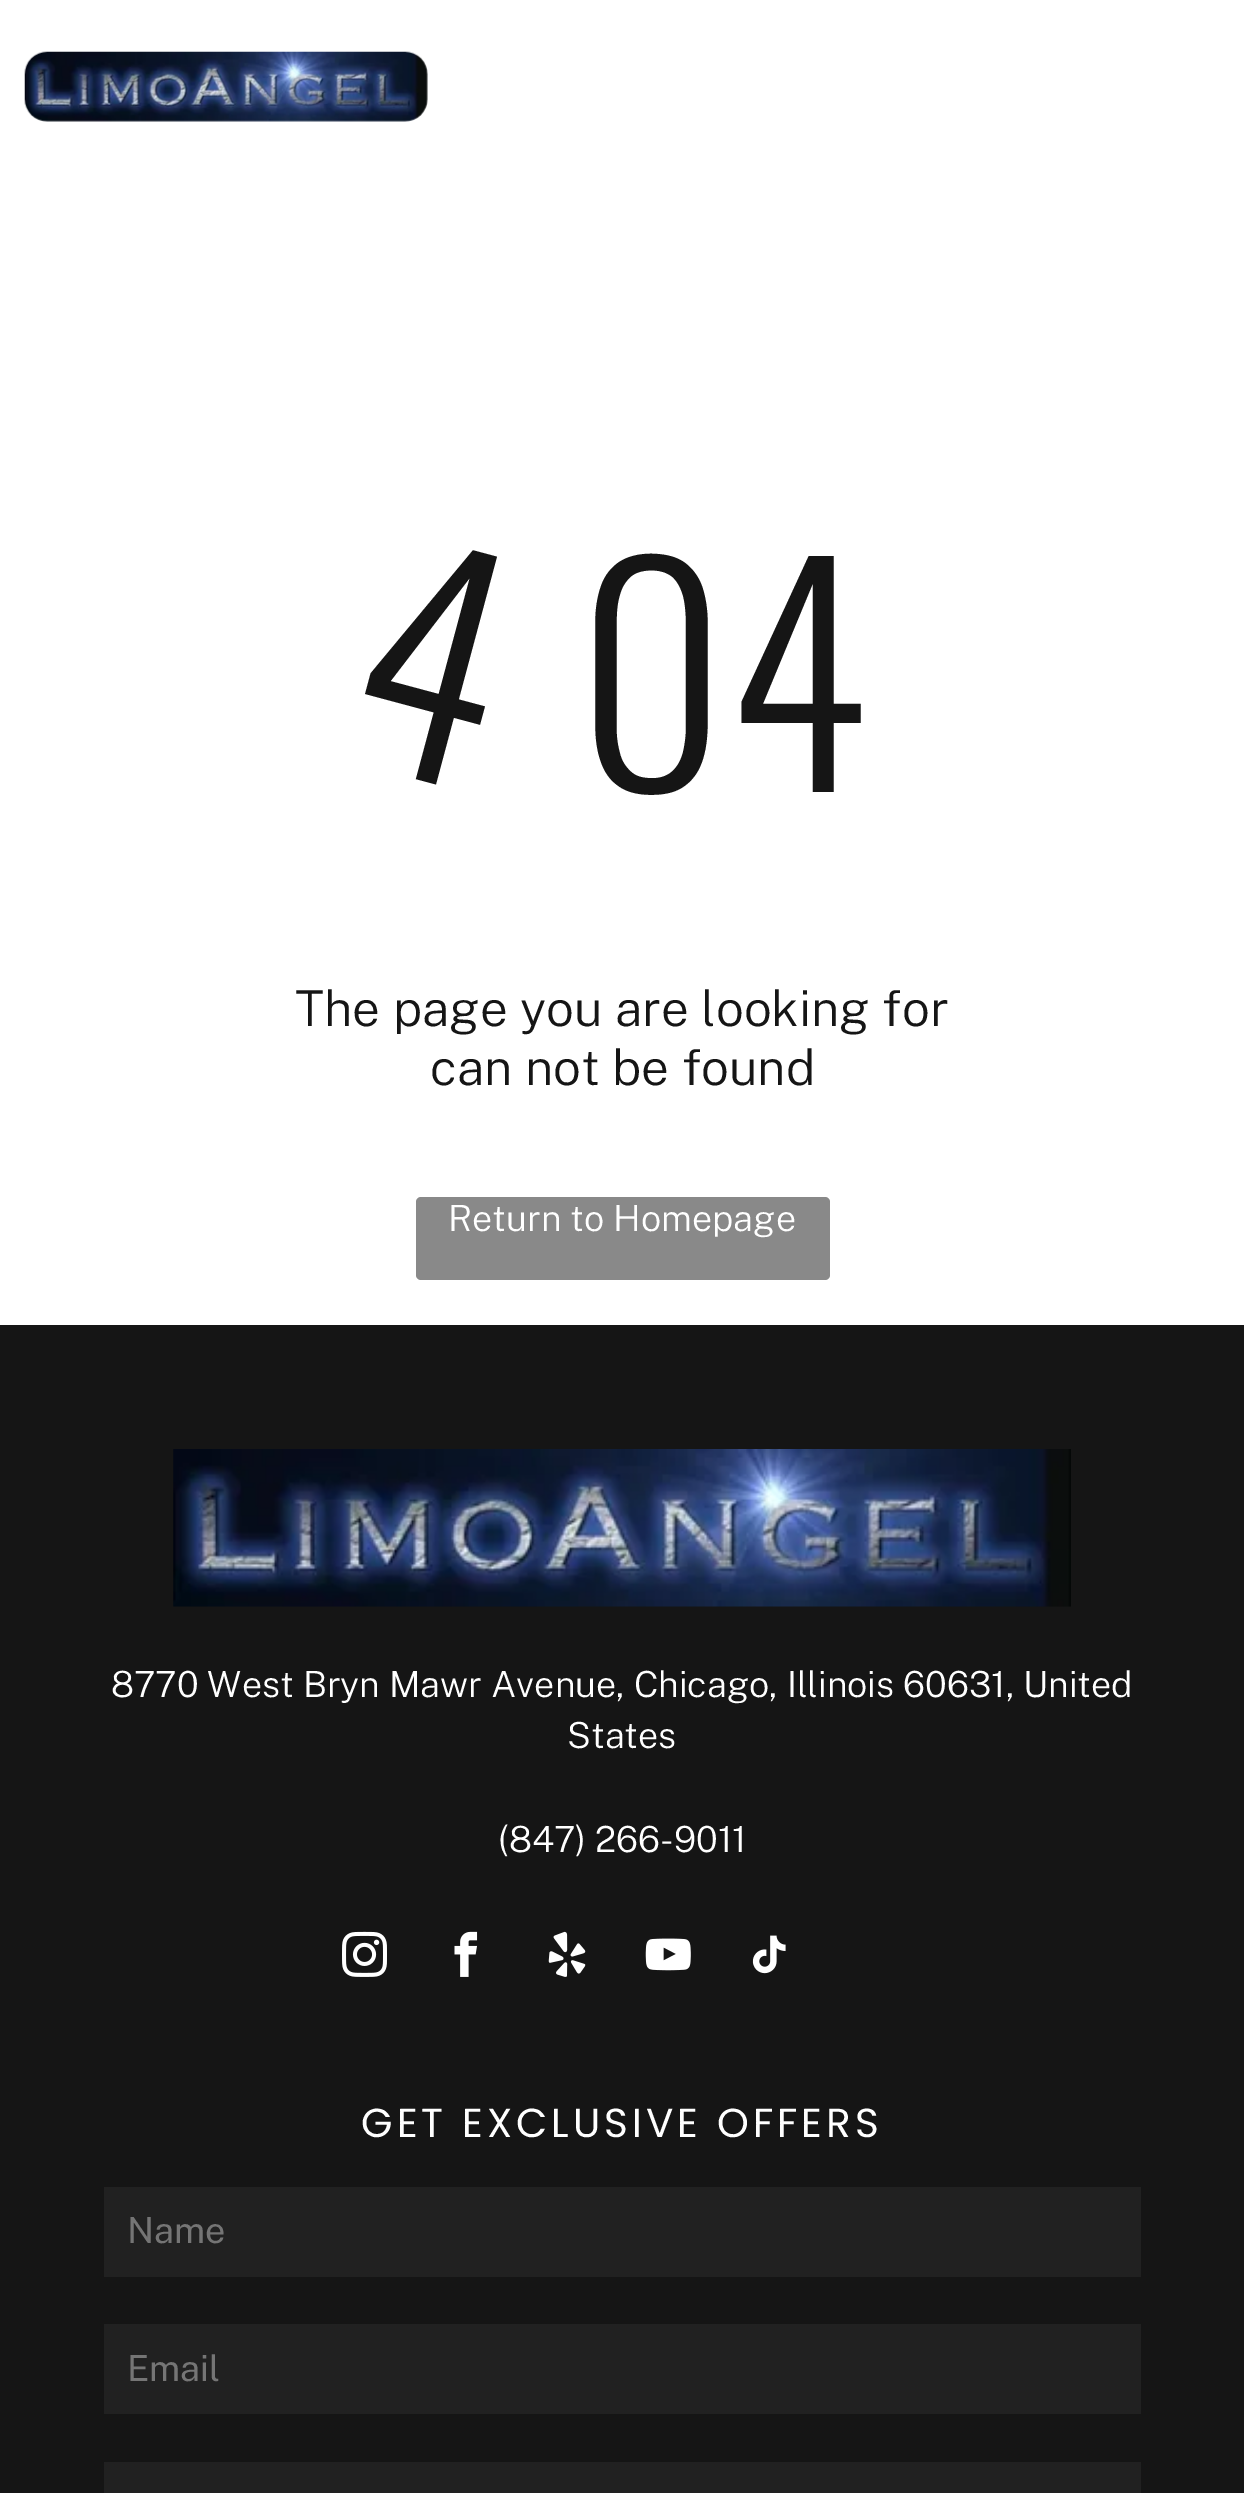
%!PS
<< /PageSize [1244 2493] >> setpagedevice
/m/moveto load def
/f/fill load def
/q/gsave load def
/Q_/grestore load def
/C { dup -16 bitshift 255 div exch dup -8 bitshift 255 and 255 div exch 255 and 255 div setrgbcolor } def
/F { [ exch dup neg 0 0 3 -1 roll 0 0 ] selectfont } def
/T { moveto show } def
/R { rectfill } def
/Q { 5 dict begin { /r /h /w /y /x } { exch def } forall
  x r add y moveto x w add y 2 copy h add r arct x w add y h add x 1 index r arct
  x y h add x y r arct x y 2 copy exch w add exch r arct closepath end } def
/I { 5 dict begin { /h /w /y /x /name } { exch def } forall
  gsave x y translate w h scale
  w h 8 [w 0 0 h 0 0] name (r) file false 3 colorimage grestore end } def
0 2493 translate 1 -1 scale
4 setmiterlimit
16#FFFFFF C
0 0 1244 2493 R
(1.rgb) 24 51 404 71 I
/Oswald-Light 292 F
16#151515 C
q 333 757 translate 15 rotate 0 0 m (4) show Q_
(04) 576 792 T
/PublicSans-Light 49.5 F
(The page you are looking for) 295 1026 T
(can not be found) 430 1085 T
16#898989 C
416 1197 414 83 5 Q f
/PublicSans-Light 36 F
16#FFFFFF C
(Return to Homepage) 448 1231 T
16#151515 C
0 1325 1244 1168 R
(2.rgb) 173 1449 898 158 I
16#FFFFFF C
(8770 West Bryn Mawr Avenue, Chicago, Illinois 60631, United) 111 1697 T
(States) 567 1748 T
(\(847\) 266-9011) 498 1852 T
(3.rgb) 342 1931 45 46 I
(4.rgb) 454 1931 24 46 I
(5.rgb) 548 1931 38 46 I
(6.rgb) 645 1938 46 33 I
(7.rgb) 752 1935 34 39 I
/Poppins-Regular 40.5 F
361 2137 m 4 0 (GET EXCLUSIVE OFFERS) ashow
16#212121 C
104 2187 1037 90 R
/PublicSans-Regular 36 F
16#757575 C
(Name) 127 2243 T
16#212121 C
104 2324 1037 90 R
16#757575 C
(Email) 127 2381 T
16#212121 C
104 2462 1037 31 R
showpage
